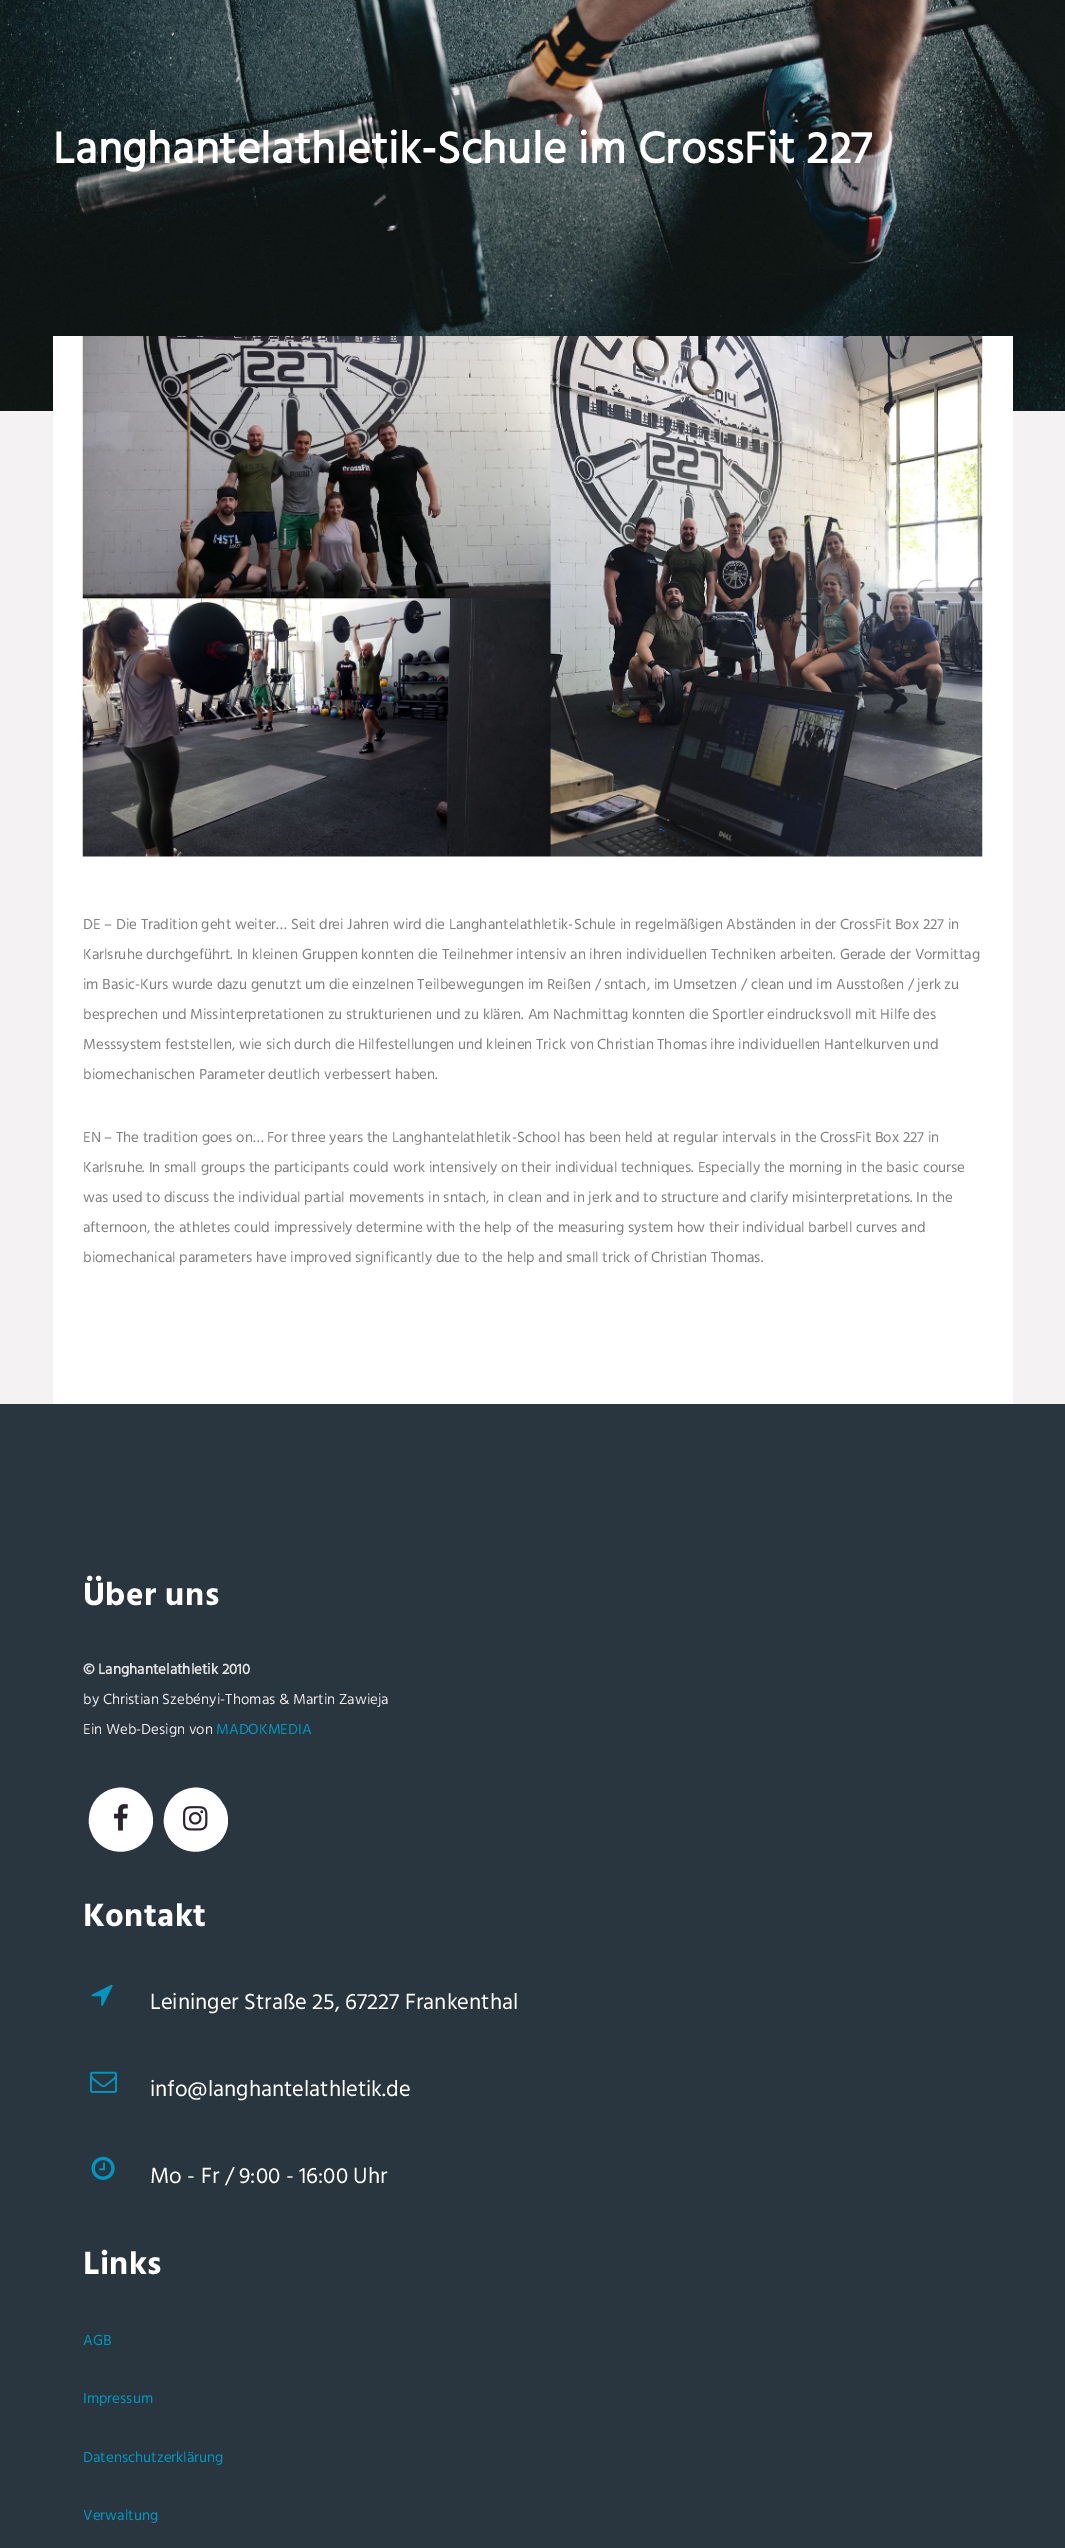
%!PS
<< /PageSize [1065 2548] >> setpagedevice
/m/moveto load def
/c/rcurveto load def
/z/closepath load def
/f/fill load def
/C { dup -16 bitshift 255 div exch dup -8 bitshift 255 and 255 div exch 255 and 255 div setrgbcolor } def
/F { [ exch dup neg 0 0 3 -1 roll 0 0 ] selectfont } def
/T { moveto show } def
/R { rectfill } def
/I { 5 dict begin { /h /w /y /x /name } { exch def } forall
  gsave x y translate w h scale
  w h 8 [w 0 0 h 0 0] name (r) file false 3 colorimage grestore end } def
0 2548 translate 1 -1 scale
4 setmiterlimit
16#F4F2F2 C
0 0 1065 2548 R
(1.rgb) 0 0 1065 411 I
/Hind-Bold 45 F
16#FFFFFF C
53 163 m .45 0 (Langhantelathletik-Schule im CrossFit 227) ashow
53 336 960 1068 R
(2.rgb) 82 336 901 521 I
/Hind-Regular 15 F
16#828181 C
(DE – Die Tradition geht weiter… Seit drei Jahren wird die Langhantelathletik-Schule in regelmäßigen Abständen in der CrossFit Box 227 in) 83 929 T
(Karlsruhe durchgeführt. In kleinen Gruppen konnten die Teilnehmer intensiv an ihren individuellen Techniken arbeiten. Gerade der Vormittag) 83 959 T
(im Basic-Kurs wurde dazu genutzt um die einzelnen Teilbewegungen im Reißen / sntach, im Umsetzen / clean und im Ausstoßen / jerk zu) 83 989 T
(besprechen und Missinterpretationen zu strukturienen und zu klären. Am Nachmittag konnten die Sportler eindrucksvoll mit Hilfe des) 83 1019 T
(Messsystem feststellen, wie sich durch die Hilfestellungen und kleinen Trick von Christian Thomas ihre individuellen Hantelkurven und) 83 1049 T
(biomechanischen Parameter deutlich verbessert haben.) 83 1079 T
(EN – The tradition goes on… For three years the Langhantelathletik-School has been held at regular intervals in the CrossFit Box 227 in) 83 1142 T
(Karlsruhe. In small groups the participants could work intensively on their individual techniques. Especially the morning in the basic course) 83 1172 T
(was used to discuss the individual partial movements in sntach, in clean and in jerk and to structure and clarify misinterpretations. In the) 83 1202 T
(afternoon, the athletes could impressively determine with the help of the measuring system how their individual barbell curves and) 83 1232 T
(biomechanical parameters have improved significantly due to the help and small trick of Christian Thomas.) 83 1262 T
16#29363F C
0 1404 1065 1144 R
/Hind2-Bold 33 F
16#FFFFFF C
83 1605 m .45 0 (Über uns) ashow
/Hind-Bold 15 F
16#E8E7E7 C
(© Langhantelathletik 2010) 83 1674 T
/Hind-Regular 15 F
(by Christian Szebényi-Thomas & Martin Zawieja) 83 1704 T
(Ein Web-Design von) 83 1734 T
16#0096C1 C
(MADOKMEDIA) 216 1734 T
16#FFFFFF C
148 1804 m 4 5 5 11 5 18 c -2 31 -44 41 -60 14 c -3 -6 -5 -12 -4 -18 c 2 -32 44 -42 59 -14 c z f
(3.rgb) 114 1804 14 27 I
223 1804 m 4 5 5 11 5 18 c -2 31 -44 41 -60 14 c -3 -6 -5 -12 -4 -18 c 2 -32 44 -42 59 -14 c z f
(4.rgb) 183 1806 25 25 I
/Hind2-Bold 33 F
83 1926 m .45 0 (Kontakt) ashow
(5.rgb) 91 1984 22 22 I
/Hind-Regular 22.5 F
(Leininger Straße 25, 67227 Frankenthal) 150 2009 T
(6.rgb) 90 2071 27 22 I
(info@langhantelathletik.de) 150 2096 T
(7.rgb) 91 2156 24 24 I
(Mo - Fr / 9:00 - 16:00 Uhr) 150 2183 T
/Hind2-Bold 33 F
83 2274 m .45 0 (Links) ashow
/Hind-Regular 15 F
16#0096C1 C
(AGB) 83 2345 T
(Impressum) 83 2403 T
(Datenschutzerklärung) 83 2462 T
(Verwaltung) 83 2520 T
showpage
